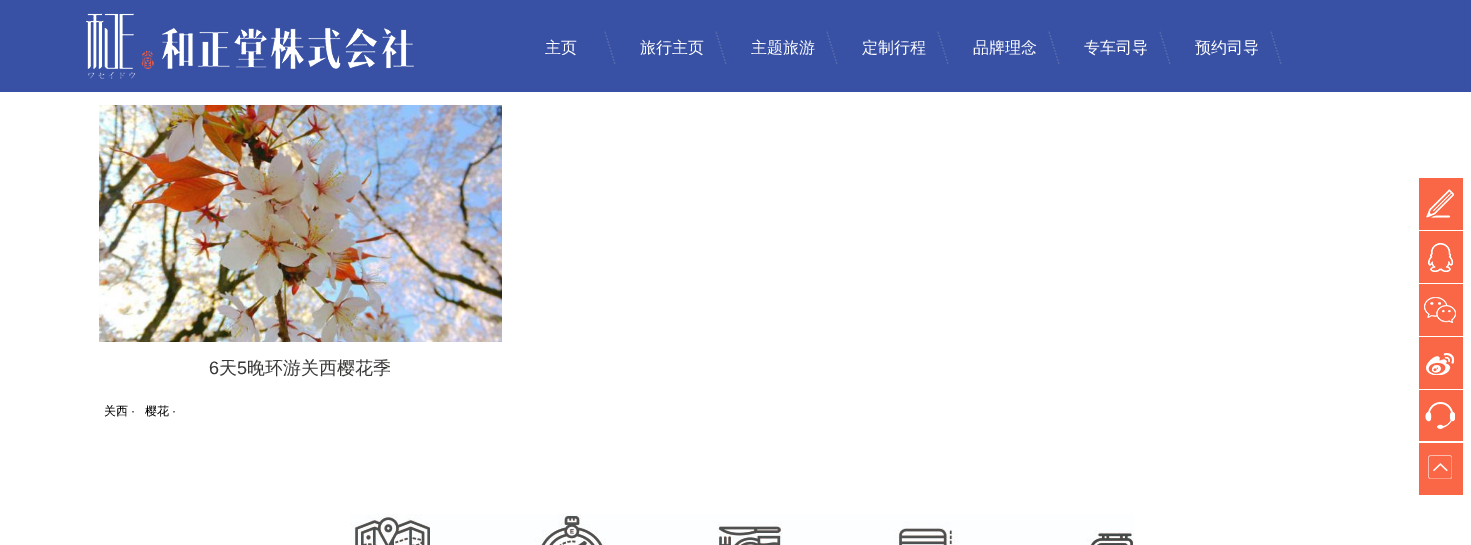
%!PS
<< /PageSize [1471 545] >> setpagedevice
/C { dup -16 bitshift 255 div exch dup -8 bitshift 255 and 255 div exch 255 and 255 div setrgbcolor } def
/F { [ exch dup neg 0 0 3 -1 roll 0 0 ] selectfont } def
/T { moveto show } def
/R { rectfill } def
/I { 5 dict begin { /h /w /y /x /name } { exch def } forall
  gsave x y translate w h scale
  w h 8 [w 0 0 h 0 0] name (r) file false 3 colorimage grestore end } def
0 545 translate 1 -1 scale
4 setmiterlimit
16#FFFFFF C
0 0 1471 545 R
16#3851A5 C
0 0 1471 92 R
(1.rgb) 86 13 328 66 I
(2.rgb) 604 31 12 33 I
/WenQuanYiZenHei-Medium 16 F
16#FFFFFF C
(主页) 545 53 T
(2.rgb) 715 31 12 33 I
(旅行主页) 640 53 T
(2.rgb) 826 31 12 33 I
(主题旅游) 751 53 T
(2.rgb) 937 31 12 33 I
(定制行程) 862 53 T
(2.rgb) 1048 31 12 33 I
(品牌理念) 973 53 T
(2.rgb) 1159 31 12 33 I
(专车司导) 1084 53 T
(2.rgb) 1270 31 12 33 I
(预约司导) 1195 53 T
(3.rgb) 99 105 403 237 I
/LiberationSans-Regular 18 F
16#393836 C
(6) 209 374 T
/WenQuanYiZenHei-Medium 18 F
(天) 219 374 T
/LiberationSans-Regular 18 F
(5) 237 374 T
/WenQuanYiZenHei-Medium 18 F
(晚环游关西樱花季) 247 374 T
/WenQuanYiZenHei-Medium 12 F
16#000000 C
(关西) 104 415 T
/LiberationSans-Regular 12 F
(·) 131 415 T
/WenQuanYiZenHei-Medium 12 F
(樱花) 145 415 T
/LiberationSans-Regular 12 F
(·) 172 415 T
(4.rgb) 1419 178 44 52 I
(5.rgb) 1419 231 44 52 I
(6.rgb) 1419 284 44 52 I
(7.rgb) 1419 337 44 52 I
(8.rgb) 1419 390 44 51 I
(9.rgb) 1419 443 44 52 I
(10.rgb) 350 514 784 31 I
showpage
